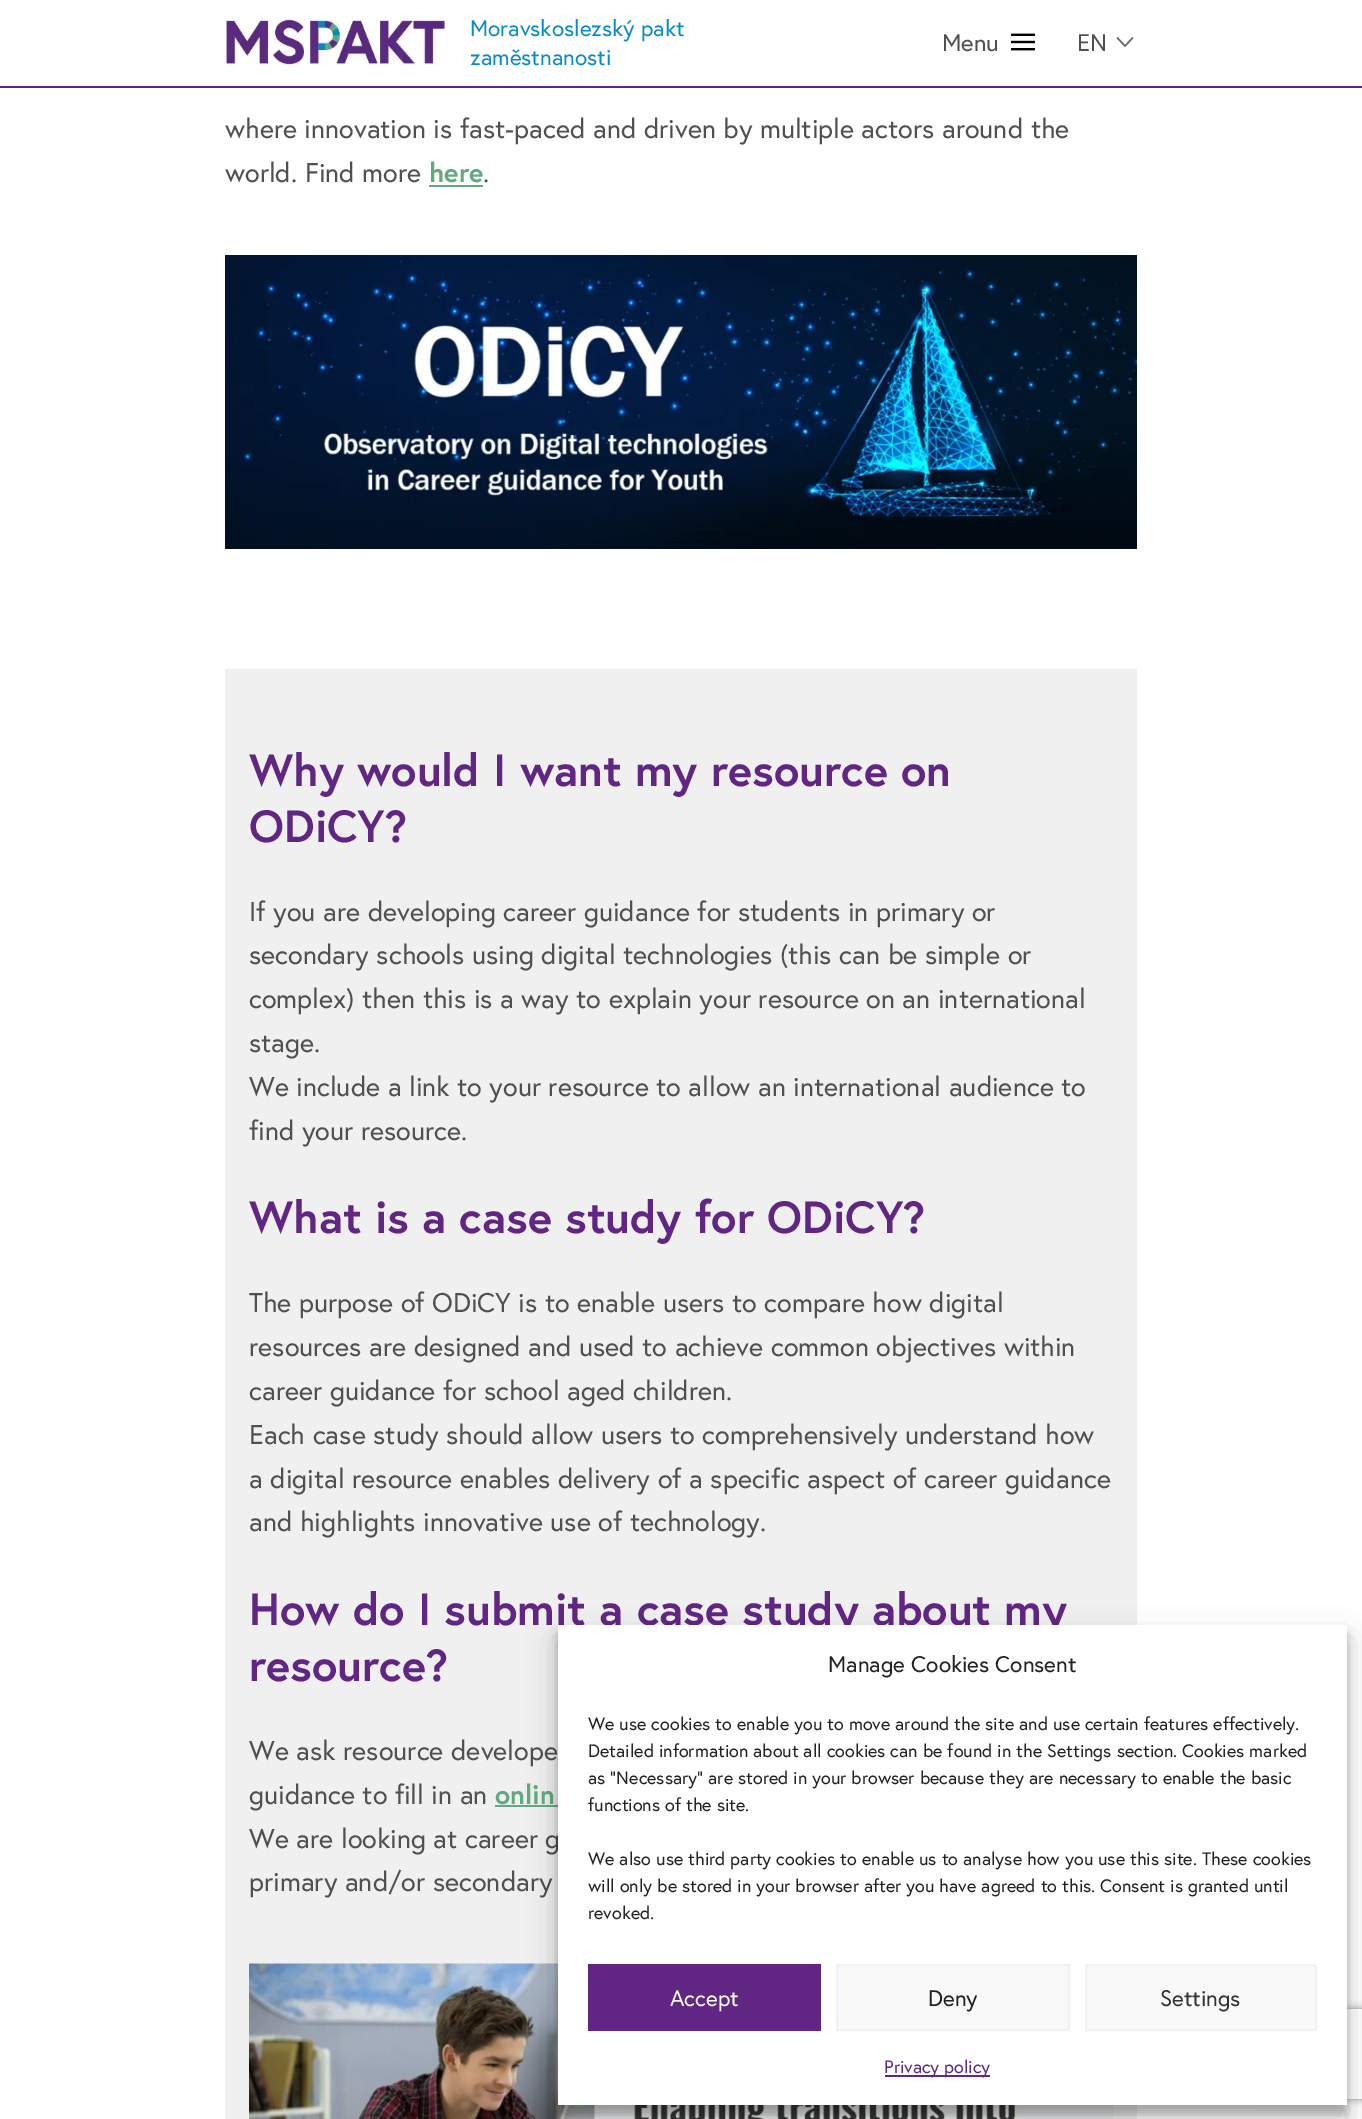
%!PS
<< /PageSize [1362 2119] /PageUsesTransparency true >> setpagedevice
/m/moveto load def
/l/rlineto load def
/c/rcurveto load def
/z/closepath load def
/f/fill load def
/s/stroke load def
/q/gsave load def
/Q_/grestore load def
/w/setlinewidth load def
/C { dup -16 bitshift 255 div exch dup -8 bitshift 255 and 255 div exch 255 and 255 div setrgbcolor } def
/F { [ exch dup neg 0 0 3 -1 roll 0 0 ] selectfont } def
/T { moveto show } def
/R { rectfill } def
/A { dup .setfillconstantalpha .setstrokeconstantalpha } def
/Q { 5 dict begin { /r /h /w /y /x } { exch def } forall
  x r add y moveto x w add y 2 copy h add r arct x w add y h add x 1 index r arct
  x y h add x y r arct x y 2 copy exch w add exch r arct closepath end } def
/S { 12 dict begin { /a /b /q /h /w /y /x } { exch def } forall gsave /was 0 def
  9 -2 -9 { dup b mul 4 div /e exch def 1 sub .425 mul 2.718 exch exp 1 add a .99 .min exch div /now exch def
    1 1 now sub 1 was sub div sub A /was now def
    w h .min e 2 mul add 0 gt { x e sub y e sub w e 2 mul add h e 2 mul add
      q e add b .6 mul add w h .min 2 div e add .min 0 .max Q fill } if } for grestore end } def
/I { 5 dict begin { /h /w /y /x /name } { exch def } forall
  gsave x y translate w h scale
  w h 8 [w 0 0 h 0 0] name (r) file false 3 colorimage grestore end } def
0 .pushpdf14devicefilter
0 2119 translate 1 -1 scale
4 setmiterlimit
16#FFFFFF C
0 0 1362 2119 R
16#612584 C
0 86 1362 2 R
(1.rgb) 225 19 221 46 I
/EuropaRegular-Regular 22.5 F
16#098BC9 C
(Moravskoslezský pakt) 470 36 T
(zaměstnanosti) 470 65 T
/EuropaRegular-Regular 24 F
16#505050 C
(Menu) 942 51 T
(2.rgb) 1011 33 24 18 I
(EN) 1077 51 T
16#686868 C
1.5 w
1 setlinecap
1 setlinejoin
1132.5 38 m -7.5 8 l -7.5 -8 l s
/EuropaRegular-Regular 27 F
16#505050 C
(where innovation is fast-paced and driven by multiple actors around the) 225 138 T
(world. Find more) 225 182 T
/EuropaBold-Bold 27 F
16#62A982 C
(here) 429 182 T
429 185 54 2 R
/EuropaRegular-Regular 27 F
16#505050 C
(.) 483 182 T
(3.rgb) 225 255 912 294 I
16#F0F0F0 C
225 669 912 1450 R
/EuropaBold-Bold 45 F
16#612584 C
(Why would I want my resource on) 249 786 T
(ODiCY?) 249 842 T
/EuropaRegular-Regular 27 F
16#505050 C
(If you are developing career guidance for students in primary or) 249 921 T
(secondary schools using digital technologies \(this can be simple or) 249 964 T
(complex\) then this is a way to explain your resource on an international) 249 1008 T
(stage.) 249 1052 T
(We include a link to your resource to allow an international audience to) 249 1096 T
(find your resource.) 249 1140 T
/EuropaBold-Bold 45 F
16#612584 C
(What is a case study for ODiCY?) 249 1233 T
/EuropaRegular-Regular 27 F
16#505050 C
(The purpose of ODiCY is to enable users to compare how digital) 249 1312 T
(resources are designed and used to achieve common objectives within) 249 1356 T
(career guidance for school aged children.) 249 1400 T
(Each case study should allow users to comprehensively understand how) 249 1444 T
(a digital resource enables delivery of a specific aspect of career guidance) 249 1488 T
(and highlights innovative use of technology.) 249 1531 T
/EuropaBold-Bold 45 F
16#612584 C
(How do I submit a case study about my) 249 1625 T
(resource?) 249 1681 T
/EuropaRegular-Regular 27 F
16#505050 C
(We ask resource develope) 249 1760 T
(guidance to fill in an) 249 1804 T
/EuropaBold-Bold 27 F
16#62A982 C
(onlin) 495 1804 T
495 1805 63 2 R
/EuropaRegular-Regular 27 F
16#505050 C
(We are looking at career g) 249 1848 T
(primary and/or secondary) 249 1891 T
(4.rgb) 249 1963 864 156 I
16#000000 C
558 1634 789 480 0 4.5 .23 S
558 1640 789 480 0 15 .19 S
q
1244 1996 m 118 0 l 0 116 l -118 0 l z 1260 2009 m 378 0 l 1.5 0 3 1.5 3 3 c 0 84 l 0 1.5 -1.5 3 -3 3 c -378 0 l -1.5 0 -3 -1.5 -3 -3 c 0 -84 l 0 -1.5 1.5 -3 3 -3 c z eoclip newpath
16#808080 C
1257 2009 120 90 3 4 1 S
Q_
16#FFFFFF C
558 1625 789 480 R
/EuropaRegular-Regular 22.5 F
16#222222 C
(Manage Cookies Consent) 828 1672 T
/EuropaRegular-Regular 18 F
(We use cookies to enable you to move around the site and use certain features effectively.) 588 1730 T
(Detailed information about all cookies can be found in the Settings section. Cookies marked) 588 1757 T
(as "Necessary" are stored in your browser because they are necessary to enable the basic) 588 1784 T
(functions of the site.) 588 1811 T
(We also use third party cookies to enable us to analyse how you use this site. These cookies) 588 1865 T
(will only be stored in your browser after you have agreed to this. Consent is granted until) 588 1892 T
(revoked.) 588 1919 T
16#612584 C
588 1964 233 67 R
/EuropaRegular-Regular 22.5 F
16#FFFFFF C
(Accept) 670 2006 T
16#F9F9F9 C
837 1965 m 232 0 l 0 65 l -232 0 l z q f Q_
16#F2F2F2 C
2 w
0 setlinecap
0 setlinejoin
s
16#222222 C
(Deny) 928 2006 T
16#F9F9F9 C
1086 1965 m 230 0 l 0 65 l -230 0 l z q f Q_
16#F2F2F2 C
s
16#333333 C
(Settings) 1160 2006 T
16#612584 C
885 2075 105 2 R
/EuropaRegular-Regular 18 F
(Privacy policy) 884 2073 T
.poppdf14devicefilter showpage
